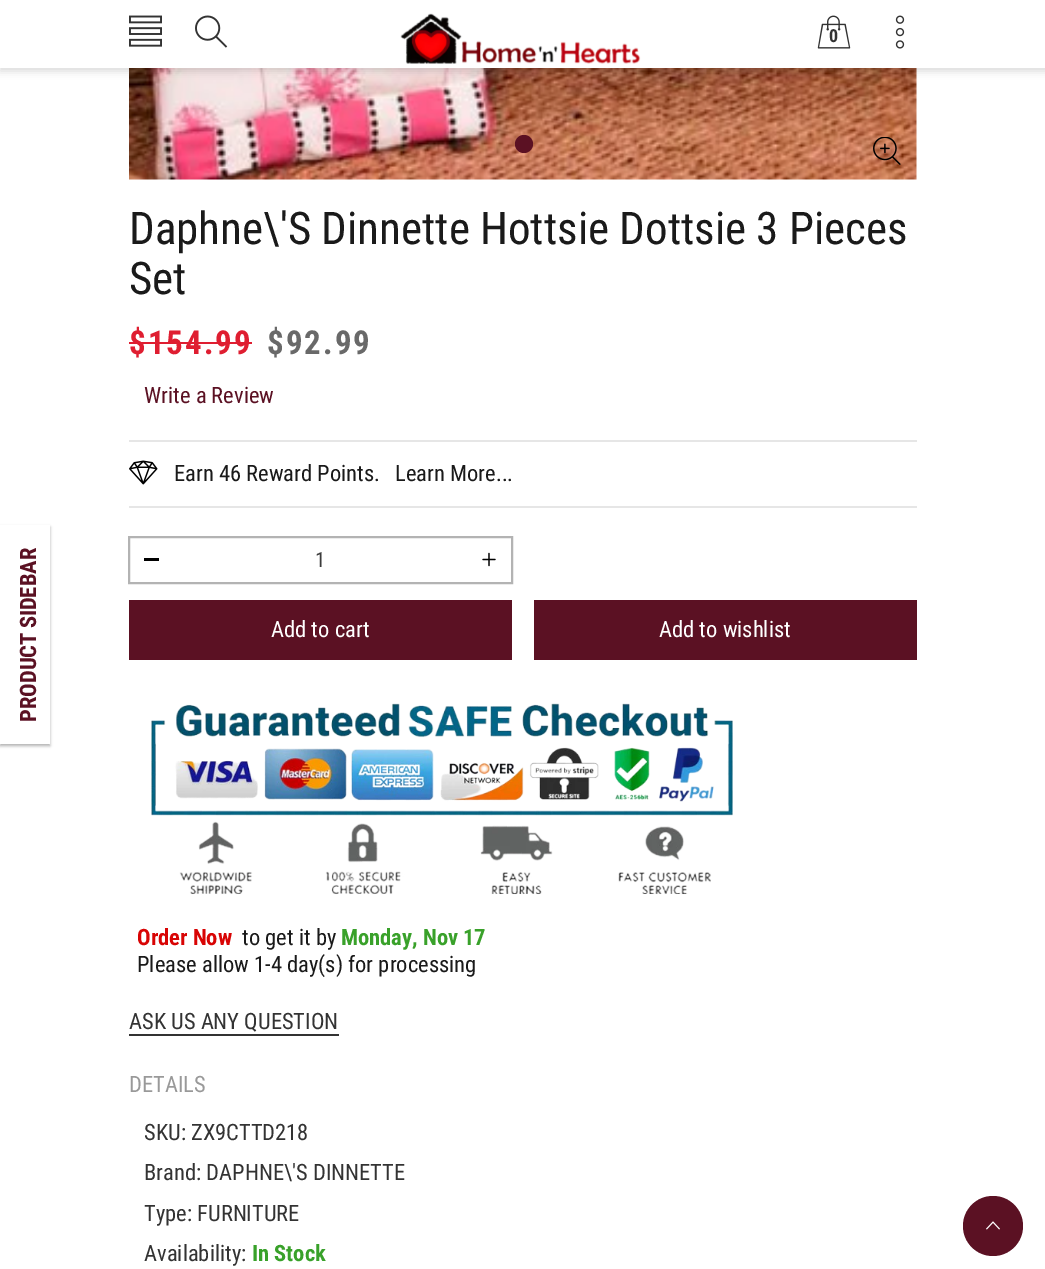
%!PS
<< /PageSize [1045 1269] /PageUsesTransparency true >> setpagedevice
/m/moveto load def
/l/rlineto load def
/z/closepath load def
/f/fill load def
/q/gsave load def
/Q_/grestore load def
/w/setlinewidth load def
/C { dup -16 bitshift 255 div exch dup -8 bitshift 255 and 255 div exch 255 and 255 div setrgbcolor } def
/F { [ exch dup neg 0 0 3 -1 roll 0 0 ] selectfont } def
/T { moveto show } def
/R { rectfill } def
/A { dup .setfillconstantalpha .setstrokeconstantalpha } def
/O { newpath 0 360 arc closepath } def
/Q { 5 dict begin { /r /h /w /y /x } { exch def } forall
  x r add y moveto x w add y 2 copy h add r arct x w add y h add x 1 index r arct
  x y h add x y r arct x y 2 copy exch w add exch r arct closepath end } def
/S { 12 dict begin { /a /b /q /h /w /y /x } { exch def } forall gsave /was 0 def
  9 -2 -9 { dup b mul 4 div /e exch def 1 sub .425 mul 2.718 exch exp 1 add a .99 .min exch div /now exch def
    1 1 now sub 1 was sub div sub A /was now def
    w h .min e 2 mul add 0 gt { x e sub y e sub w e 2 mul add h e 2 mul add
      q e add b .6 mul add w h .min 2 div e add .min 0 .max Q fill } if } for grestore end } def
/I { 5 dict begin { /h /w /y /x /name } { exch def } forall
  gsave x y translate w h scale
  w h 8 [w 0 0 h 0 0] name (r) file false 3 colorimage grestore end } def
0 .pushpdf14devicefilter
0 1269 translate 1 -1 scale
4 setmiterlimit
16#FFFFFF C
0 0 1045 1269 R
(6.rgb) 129 68 788 112 I
16#000000 C
0 3 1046 68 0 4 .15 S
16#FFFFFF C
0 0 1045 68 R
(1.rgb) 129 15 33 32 I
(2.rgb) 195 15 33 33 I
(3.rgb) 400 13 241 51 I
(4.rgb) 817 15 34 34 I
/RobotoCondensed-Bold 18 F
16#333333 C
(0) 829 42 T
(5.rgb) 895 15 10 34 I
q
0 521 m 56 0 l 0 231 l -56 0 l z 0 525 m 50 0 l 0 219 l -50 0 l z eoclip newpath
16#000000 C
0 527 50 219 0 1.5 .3 S
Q_
0.95 A
16#FFFFFF C
1 525 49 219 R
/RobotoCondensed-Bold 22.5 F
1 A
16#5B1123 C
q 36 722 translate -90 rotate 0 0 m -1 0 32 (PRODUCT SIDEBAR) widthshow Q_
(7.rgb) 873 137 28 28 I
524 144 9 O f
/RobotoCondensed-Regular 45 F
16#1A1A1A C
(Daphne\\'S Dinnette Hottsie Dottsie 3 Pieces) 129 244 T
(Set) 129 294 T
/RobotoCondensed-Bold 33 F
16#DF1E31 C
129 354 m 2 0 ($154.99) ashow
129 342 123 2 R
16#696969 C
267 354 m 2 0 ($92.99) ashow
/RobotoCondensed-Regular 22.5 F
16#5B1123 C
(Write a Review) 144 403 T
16#E6E6E6 C
129 440 788 2 R
129 506 788 2 R
(8.rgb) 129 460 29 25 I
16#1A1A1A C
(Earn 46 Reward Points.) 174 481 T
(Learn More...) 395 481 T
16#B3B3B3 C
2 w
129 537 383 46 rectstroke
16#000000 C
144 558 15 3 R
/RobotoCondensed-Regular 21 F
16#3C3C3C C
(1) 315 567 T
(9.rgb) 482 552 14 15 I
16#5B1123 C
129 600 383 60 R
/RobotoCondensed-Regular 22.5 F
16#FFFFFF C
(Add to cart) 271 637 T
16#5B1123 C
534 600 383 60 R
16#FFFFFF C
(Add to wishlist) 659 637 T
(10.rgb) 151 703 582 192 I
/RobotoCondensed-Bold 22.5 F
16#D80404 C
(Order Now) 137 945 T
/RobotoCondensed-Regular 22.5 F
16#1A1A1A C
(to get it by) 242 945 T
/RobotoCondensed-Bold 22.5 F
16#39A12A C
(Monday, Nov 17) 341 945 T
/RobotoCondensed-Regular 22.5 F
16#1A1A1A C
(Please allow 1-4 day\(s\) for processing) 137 972 T
16#333333 C
(ASK US ANY QUESTION) 129 1029 T
129 1034 210 2 R
16#999999 C
(DETAILS) 129 1092 T
16#333333 C
(SKU: ZX9CTTD218) 144 1140 T
(Brand: DAPHNE\\'S DINNETTE) 144 1180 T
(Type: FURNITURE) 144 1221 T
(Availability:) 144 1261 T
/RobotoCondensed-Bold 22.5 F
16#39A12A C
(In Stock) 252 1261 T
16#5B1123 C
993 1226 30 O f
(11.rgb) 986 1221 14 9 I
.poppdf14devicefilter showpage
